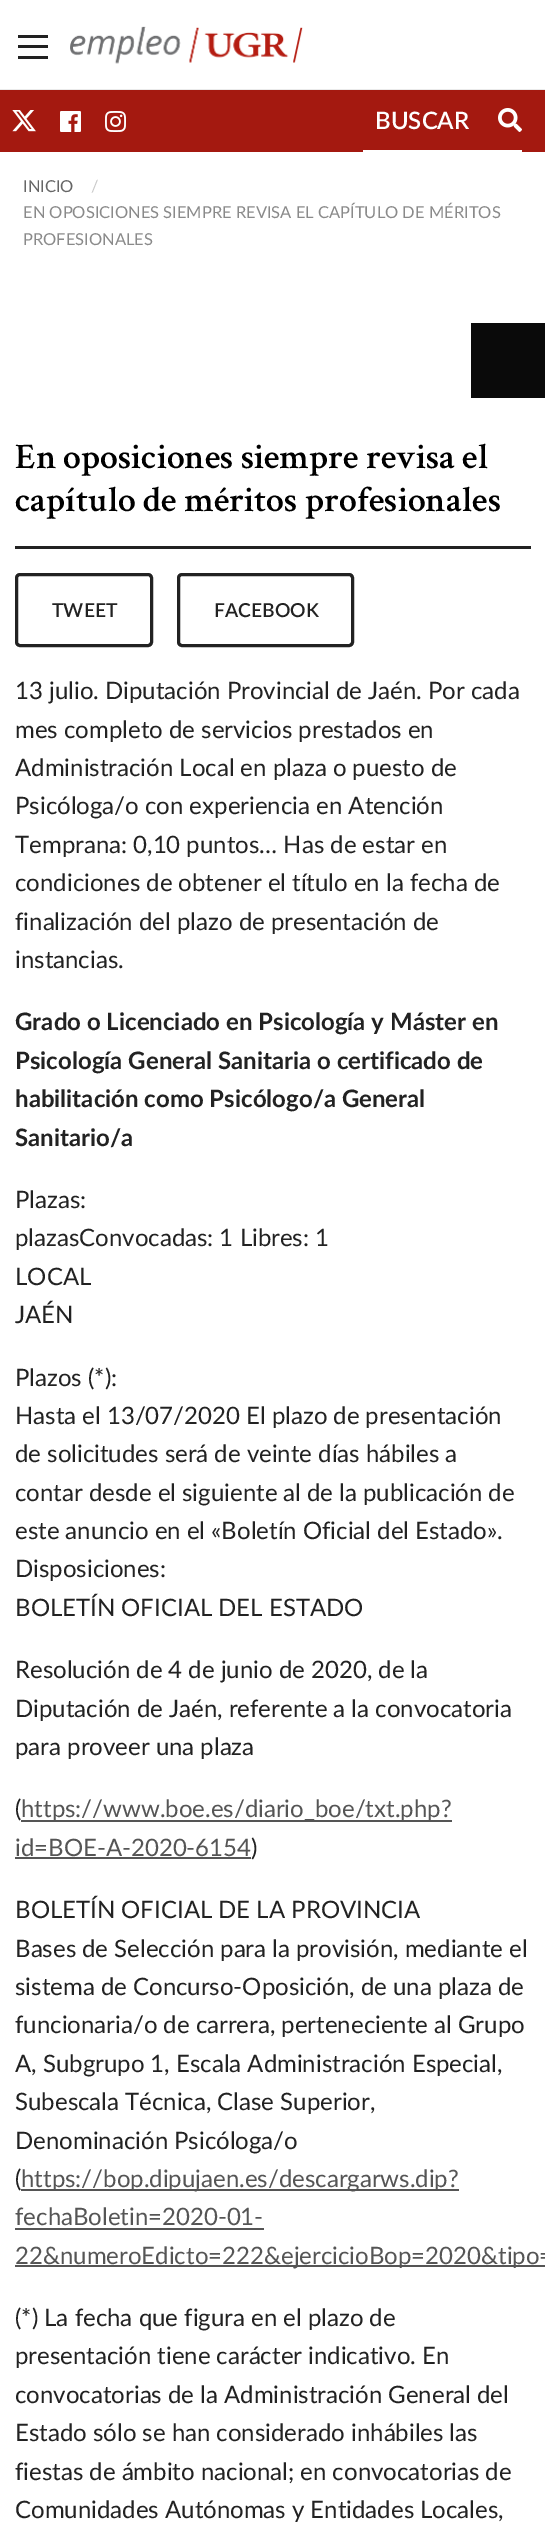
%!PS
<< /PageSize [545 2526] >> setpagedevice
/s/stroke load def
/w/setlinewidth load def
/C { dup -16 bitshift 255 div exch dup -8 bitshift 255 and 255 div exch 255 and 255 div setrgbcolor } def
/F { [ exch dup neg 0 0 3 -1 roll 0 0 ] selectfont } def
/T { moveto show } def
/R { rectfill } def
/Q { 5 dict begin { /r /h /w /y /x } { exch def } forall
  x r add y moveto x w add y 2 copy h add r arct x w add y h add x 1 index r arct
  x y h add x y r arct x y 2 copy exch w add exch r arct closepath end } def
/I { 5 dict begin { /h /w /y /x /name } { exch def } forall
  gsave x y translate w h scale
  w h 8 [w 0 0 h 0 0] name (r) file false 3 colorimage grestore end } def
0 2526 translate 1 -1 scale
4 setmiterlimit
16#FFFFFF C
0 0 545 2526 R
16#212121 C
18 56 30 3 R
18 45 30 3 R
18 35 30 3 R
(1.rgb) 70 26 233 38 I
16#EAEAEA C
0 89 545 1 R
16#A41910 C
0 90 545 62 R
(2.rgb) 12 110 24 22 I
(3.rgb) 60 111 21 21 I
(4.rgb) 105 111 21 21 I
16#FFFFFF C
363 150 159 2 R
/Lato-SemiBold 24 F
(BUSCAR) 375 129 T
(5.rgb) 498 108 24 24 I
/Lato-Regular 16.5 F
16#666666 C
(INICIO) 23 192 T
16#CACACA C
(/) 91 192 T
16#8A8A8A C
(EN OPOSICIONES SIEMPRE REVISA EL CAPÍTULO DE MÉRITOS) 23 218 T
(PROFESIONALES) 23 245 T
16#0A0A0A C
471 323 74 75 R
/CrimsonText-SemiBold 36 F
16#000000 C
(En oposiciones siempre revisa el) 15 468 T
(capítulo de méritos profesionales) 15 511 T
16#222222 C
15 546 516 3 R
3 w
16.5 574.5 135 71 3.5 Q s
/Lato-SemiBold 19.25 F
(TWEET) 52 617 T
178.5 574.5 174 71 3.5 Q s
(FACEBOOK) 214 617 T
/Lato-Regular 24 F
(13 julio. Diputación Provincial de Jaén. Por cada) 15 699 T
(mes completo de servicios prestados en) 15 738 T
(Administración Local en plaza o puesto de) 15 776 T
(Psicóloga/o con experiencia en Atención) 15 814 T
(Temprana: 0,10 puntos… Has de estar en) 15 853 T
(condiciones de obtener el título en la fecha de) 15 891 T
(finalización del plazo de presentación de) 15 930 T
(instancias.) 15 968 T
/Lato-Bold 24 F
(Grado o Licenciado en Psicología y Máster en) 15 1030 T
(Psicología General Sanitaria o certificado de) 15 1069 T
(habilitación como Psicólogo/a General) 15 1107 T
(Sanitario/a) 15 1146 T
/Lato-Regular 24 F
(Plazas:) 15 1208 T
(plazasConvocadas: 1 Libres: 1) 15 1246 T
(LOCAL) 15 1285 T
(JAÉN) 15 1323 T
(Plazos \(*\):) 15 1386 T
(Hasta el 13/07/2020 El plazo de presentación) 15 1424 T
(de solicitudes será de veinte días hábiles a) 15 1462 T
(contar desde el siguiente al de la publicación de) 15 1501 T
(este anuncio en el «Boletín Oficial del Estado».) 15 1539 T
(Disposiciones:) 15 1577 T
(BOLETÍN OFICIAL DEL ESTADO) 15 1616 T
(Resolución de 4 de junio de 2020, de la) 15 1678 T
(Diputación de Jaén, referente a la convocatoria) 15 1717 T
(para proveer una plaza) 15 1755 T
(\() 15 1817 T
16#555555 C
21 1820 431 2 R
(https://www.boe.es/diario_boe/txt.php?) 21 1817 T
(id=BOE-A-2020-6154) 15 1856 T
15 1857 236 2 R
16#222222 C
(\)) 251 1856 T
(BOLETÍN OFICIAL DE LA PROVINCIA) 15 1918 T
(Bases de Selección para la provisión, mediante el) 15 1957 T
(sistema de Concurso-Oposición, de una plaza de) 15 1995 T
(funcionaria/o de carrera, perteneciente al Grupo) 15 2033 T
(A, Subgrupo 1, Escala Administración Especial,) 15 2072 T
(Subescala Técnica, Clase Superior,) 15 2110 T
(Denominación Psicóloga/o) 15 2149 T
(\() 15 2187 T
16#555555 C
21 2189 438 2 R
(https://bop.dipujaen.es/descargarws.dip?) 21 2187 T
(fechaBoletin=2020-01-) 15 2225 T
15 2228 249 2 R
15 2265 530 2 R
(22&numeroEdicto=222&ejercicioBop=2020&tipo=) 15 2264 T
16#222222 C
(\(*\) La fecha que figura en el plazo de) 15 2326 T
(presentación tiene carácter indicativo. En) 15 2364 T
(convocatorias de la Administración General del) 15 2403 T
(Estado sólo se han considerado inhábiles las) 15 2441 T
(fiestas de ámbito nacional; en convocatorias de) 15 2480 T
(Comunidades Autónomas y Entidades Locales,) 15 2518 T
showpage
